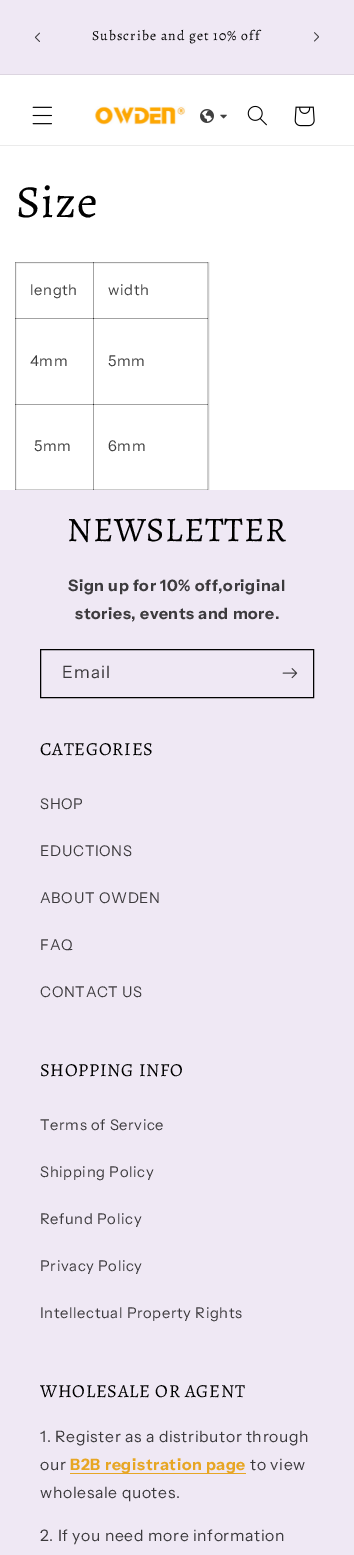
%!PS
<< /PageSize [354 1555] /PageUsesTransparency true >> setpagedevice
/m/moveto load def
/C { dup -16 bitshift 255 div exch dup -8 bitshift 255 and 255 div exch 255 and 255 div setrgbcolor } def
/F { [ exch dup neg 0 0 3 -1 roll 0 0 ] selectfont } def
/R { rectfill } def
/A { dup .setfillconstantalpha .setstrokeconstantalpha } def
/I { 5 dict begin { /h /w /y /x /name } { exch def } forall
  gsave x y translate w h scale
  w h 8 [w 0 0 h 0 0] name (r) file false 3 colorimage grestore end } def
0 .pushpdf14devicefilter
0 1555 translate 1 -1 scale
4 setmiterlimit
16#FFFFFF C
0 0 354 1555 R
16#CCCCCC C
207 318 1 87 R
93 404 1 86 R
93 489 115 1 R
16#A3A3A3 C
93 489 1 1 R
16#CCCCCC C
207 404 1 86 R
16#A3A3A3 C
207 489 1 1 R
16#EFE8F4 C
0 0 354 74 R
16#DCD5E0 C
0 74 354 1 R
(1.rgb) 34 32 6 10 I
/Alegreya-Regular 13.75 F
16#000000 C
92 40 m 1.05 0 (Subscribe and get 10% off) ashow
(2.rgb) 314 32 5 10 I
16#EBEBEB C
0 145 354 1 R
(3.rgb) 32 106 20 19 I
(4.rgb) 94 106 92 19 I
(5.rgb) 200 109 14 14 I
(6.rgb) 220 114 7 5 I
(7.rgb) 247 105 20 21 I
(8.rgb) 294 106 21 21 I
/Alegreya-Regular 46 F
16#000000 C
16 217 m .7 0 (Size) ashow
16#CCCCCC C
15.5 262.5 193 228 rectstroke
16#A3A3A3 C
93 262 115 1 R
16#CCCCCC C
93 318 115 1 R
16#A3A3A3 C
207 318 1 1 R
0.2 A
16#000000 C
207 262 1 57 R
1 A
16#CCCCCC C
93 404 115 1 R
16#A3A3A3 C
93 404 1 1 R
0.2 A
16#000000 C
15 404 79 1 R
93 404 1 86 R
1 A
16#828282 C
207 404 1 1 R
0.2 A
16#000000 C
93 404 115 1 R
93 318 1 87 R
15 318 79 1 R
93 318 1 87 R
93 318 115 1 R
93 262 1 57 R
15 262 79 1 R
93 262 1 57 R
15 489 79 1 R
15 404 1 86 R
15 404 79 1 R
15 318 1 87 R
15 318 79 1 R
15 262 1 57 R
/InstrumentSans-Regular 14.75 F
1 A
16#404040 C
30 295 m .65 0 (length) ashow
108 295 m .65 0 (width) ashow
30 366 m .65 0 (4mm) ashow
108 366 m .65 0 (5mm) ashow
34 451 m .65 0 (5mm) ashow
108 451 m .65 0 (6mm) ashow
16#EFE8F4 C
0 490 354 1065 R
/Alegreya-Regular 34.5 F
16#000000 C
67 541 m .7 0 (NEWSLETTER) ashow
/InstrumentSans-Bold 15.75 F
16#3C3A3D C
68 591 m .65 0 (Sign up for 10% off,original) ashow
75 619 m .65 0 (stories, events and more.) ashow
16#000000 C
40.5 649.5 273 48 rectstroke
/InstrumentSans-Regular 17 F
16#3C3A3D C
62 678 m 1.05 0 (Email) ashow
(9.rgb) 282 668 16 11 I
/Alegreya-Regular 18.4 F
16#000000 C
40 755 m .7 0 (CATEGORIES) ashow
/InstrumentSans-Regular 14.75 F
16#3C3A3D C
40 809 m .65 0 (SHOP) ashow
40 856 m .65 0 (EDUCTIONS) ashow
40 903 m .65 0 (ABOUT OWDEN) ashow
40 950 m .65 0 (FAQ) ashow
40 997 m .65 0 (CONTACT US) ashow
/Alegreya-Regular 18.4 F
16#000000 C
40 1076 m .7 0 (SHOPPING INFO) ashow
/InstrumentSans-Regular 14.75 F
16#3C3A3D C
40 1130 m .65 0 (Terms of Service) ashow
40 1177 m .65 0 (Shipping Policy) ashow
40 1224 m .65 0 (Refund Policy) ashow
40 1271 m .65 0 (Privacy Policy) ashow
40 1318 m .65 0 (Intellectual Property Rights) ashow
/Alegreya-Regular 18.4 F
16#000000 C
40 1397 m .7 0 (WHOLESALE OR AGENT) ashow
/InstrumentSans-Regular 15.75 F
16#3C3A3D C
40 1442 m .65 0 (1. Register as a distributor through) ashow
40 1470 m .65 0 (our) ashow
16#E7A625 C
70 1473 176 1 R
/InstrumentSans-Bold 15.75 F
16#E7A624 C
70 1470 m .65 0 (B2B registration page) ashow
/InstrumentSans-Regular 15.75 F
16#3C3A3D C
250 1470 m .65 0 (to view) ashow
40 1498 m .65 0 (wholesale quotes.) ashow
40 1541 m .65 0 (2. If you need more information) ashow
.poppdf14devicefilter showpage
